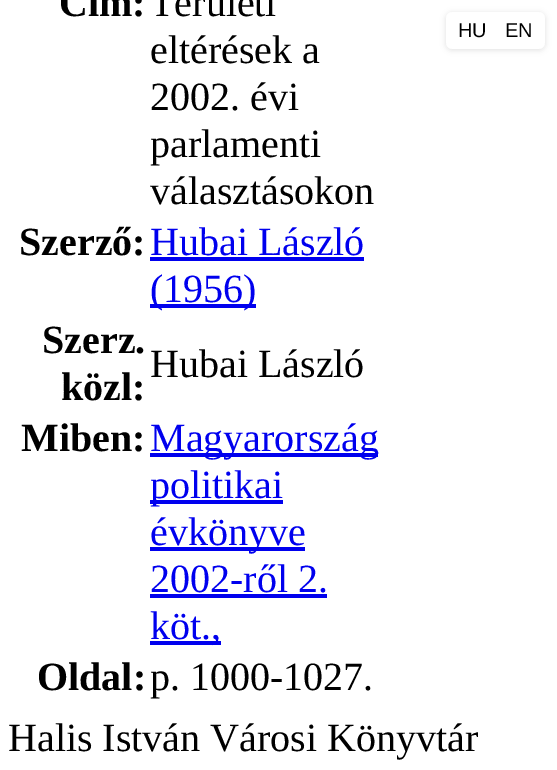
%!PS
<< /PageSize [557 770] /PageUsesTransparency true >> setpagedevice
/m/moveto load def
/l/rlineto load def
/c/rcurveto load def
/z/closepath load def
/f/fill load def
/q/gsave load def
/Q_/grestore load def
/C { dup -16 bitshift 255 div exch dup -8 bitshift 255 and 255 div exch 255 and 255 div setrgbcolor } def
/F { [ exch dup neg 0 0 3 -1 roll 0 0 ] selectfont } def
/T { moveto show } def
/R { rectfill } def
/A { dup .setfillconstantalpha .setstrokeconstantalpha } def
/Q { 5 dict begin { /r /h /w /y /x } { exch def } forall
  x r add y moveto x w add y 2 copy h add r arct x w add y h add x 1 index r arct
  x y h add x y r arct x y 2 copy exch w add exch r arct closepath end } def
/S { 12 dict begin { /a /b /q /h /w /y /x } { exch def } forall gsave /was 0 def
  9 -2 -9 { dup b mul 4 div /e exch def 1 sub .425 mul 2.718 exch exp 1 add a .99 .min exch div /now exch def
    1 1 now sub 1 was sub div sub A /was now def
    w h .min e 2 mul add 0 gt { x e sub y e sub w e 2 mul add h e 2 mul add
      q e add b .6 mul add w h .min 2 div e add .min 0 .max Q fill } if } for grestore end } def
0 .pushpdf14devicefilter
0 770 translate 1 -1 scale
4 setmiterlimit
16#FFFFFF C
0 0 557 770 R
/LiberationSerif-Bold 40 F
16#000000 C
(Cím:) 59 16 T
/LiberationSerif-Regular 40 F
(Területi) 150 16 T
(eltérések a) 150 63 T
(2002. évi) 150 110 T
(parlamenti) 150 157 T
(választásokon) 150 204 T
/LiberationSerif-Bold 40 F
(Szerző:) 19 255 T
/LiberationSerif-Regular 40 F
16#0000EE C
(Hubai László) 150 255 T
150 257 214 4 R
150 304 106 4 R
(\(1956\)) 150 302 T
/LiberationSerif-Bold 40 F
16#000000 C
(Szerz.) 42 353 T
(közl:) 61 400 T
/LiberationSerif-Regular 40 F
(Hubai László) 150 377 T
/LiberationSerif-Bold 40 F
(Miben:) 21 451 T
16#0000EE C
150 453 228 4 R
/LiberationSerif-Regular 40 F
(Magyarország) 150 451 T
150 500 133 4 R
(politikai) 150 498 T
150 547 155 4 R
(évkönyve) 150 545 T
(2002-ről 2.) 150 592 T
150 594 177 4 R
150 641 71 4 R
(köt.,) 150 639 T
/LiberationSerif-Bold 40 F
16#000000 C
(Oldal:) 37 690 T
/LiberationSerif-Regular 40 F
(p. 1000-1027.) 150 690 T
(Halis István Városi Könyvtár) 8 751 T
q
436 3 m 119 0 l 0 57 l -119 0 l z 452 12 m 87 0 l 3.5 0 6 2.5 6 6 c 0 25 l 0 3.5 -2.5 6 -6 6 c -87 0 l -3.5 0 -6 -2.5 -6 -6 c 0 -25 l 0 -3.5 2.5 -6 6 -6 c z eoclip newpath
446 13 99 37 6 3 .12 S
Q_
0.85 A
16#FFFFFF C
446 12 99 37 6 Q f
/LiberationSans-Regular 20 F
1 A
16#000000 C
(HU) 458 37 T
(EN) 505 37 T
.poppdf14devicefilter showpage
